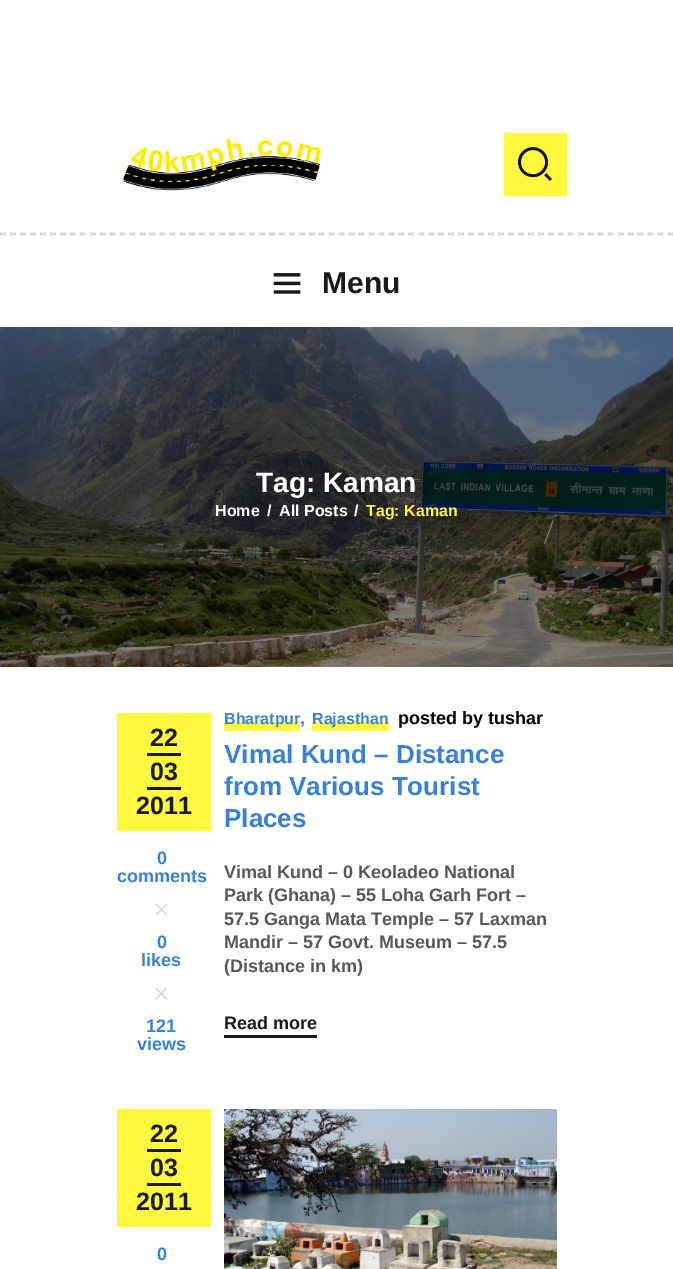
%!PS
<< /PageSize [673 1269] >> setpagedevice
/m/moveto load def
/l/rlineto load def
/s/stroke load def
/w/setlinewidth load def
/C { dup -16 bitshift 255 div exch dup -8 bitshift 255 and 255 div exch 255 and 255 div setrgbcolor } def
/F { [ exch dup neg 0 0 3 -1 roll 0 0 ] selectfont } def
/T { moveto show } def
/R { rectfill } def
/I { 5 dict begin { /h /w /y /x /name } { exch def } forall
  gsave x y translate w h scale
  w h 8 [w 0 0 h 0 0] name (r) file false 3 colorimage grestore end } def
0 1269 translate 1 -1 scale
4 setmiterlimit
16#FFFFFF C
0 0 673 1269 R
(1.rgb) 122 138 199 53 I
16#FFF83F C
504 133 63 63 R
(2.rgb) 518 147 34 34 I
16#DADADA C
2.8 w
[6 3.96] 0 setdash
0 234 m 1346 0 l s
(3.rgb) 273 273 28 21 I
/LiberationSans-Bold 30 F
16#1A1A1A C
(Menu) 322 293 T
(4.rgb) 0 327 673 340 I
/LiberationSans-Bold 28 F
16#FFFFFF C
(Tag: Kaman) 256 492 T
/LiberationSans-Bold 16 F
(Home) 215 516 T
(/) 267 516 T
(All Posts) 279 516 T
(/) 354 516 T
16#FFF83F C
(Tag: Kaman) 366 516 T
117 713 94 118 R
/LiberationSans-Bold 25 F
16#1A1A1A C
(22) 150 746 T
147 753 34 3 R
(03) 150 780 T
147 787 34 3 R
(2011) 136 814 T
/LiberationSans-Bold 18 F
16#3682D9 C
(0) 157 864 T
(comments) 117 882 T
(5.rgb) 155 903 13 13 I
(0) 157 948 T
(likes) 141 966 T
(5.rgb) 155 987 13 13 I
(121) 146 1032 T
(views) 137 1050 T
16#FFF83F C
224 722 76 9 R
/LiberationSans-Bold 16 F
16#3682D9 C
(Bharatpur) 224 724 T
/LiberationSans-Bold 18 F
(,) 300 724 T
16#FFF83F C
312 722 77 9 R
/LiberationSans-Bold 16 F
16#3682D9 C
(Rajasthan) 312 724 T
/LiberationSans-Bold 18 F
16#000000 C
(posted by tushar) 398 724 T
/LiberationSans-Bold 26 F
16#3682D9 C
(Vimal Kund – Distance) 224 763 T
(from Various Tourist) 224 795 T
(Places) 224 827 T
/LiberationSans-Bold 18 F
16#575757 C
(Vimal Kund – 0 Keoladeo National) 224 878 T
(Park \(Ghana\) – 55 Loha Garh Fort –) 224 901 T
(57.5 Ganga Mata Temple – 57 Laxman) 224 925 T
(Mandir – 57 Govt. Museum – 57.5) 224 948 T
(\(Distance in km\)) 224 972 T
16#1A1A1A C
224 1035 93 3 R
(Read more) 224 1029 T
16#FFF83F C
117 1109 94 118 R
/LiberationSans-Bold 25 F
16#1A1A1A C
(22) 150 1142 T
147 1149 34 3 R
(03) 150 1176 T
147 1183 34 3 R
(2011) 136 1210 T
/LiberationSans-Bold 18 F
16#3682D9 C
(0) 157 1260 T
(6.rgb) 224 1109 333 160 I
showpage
